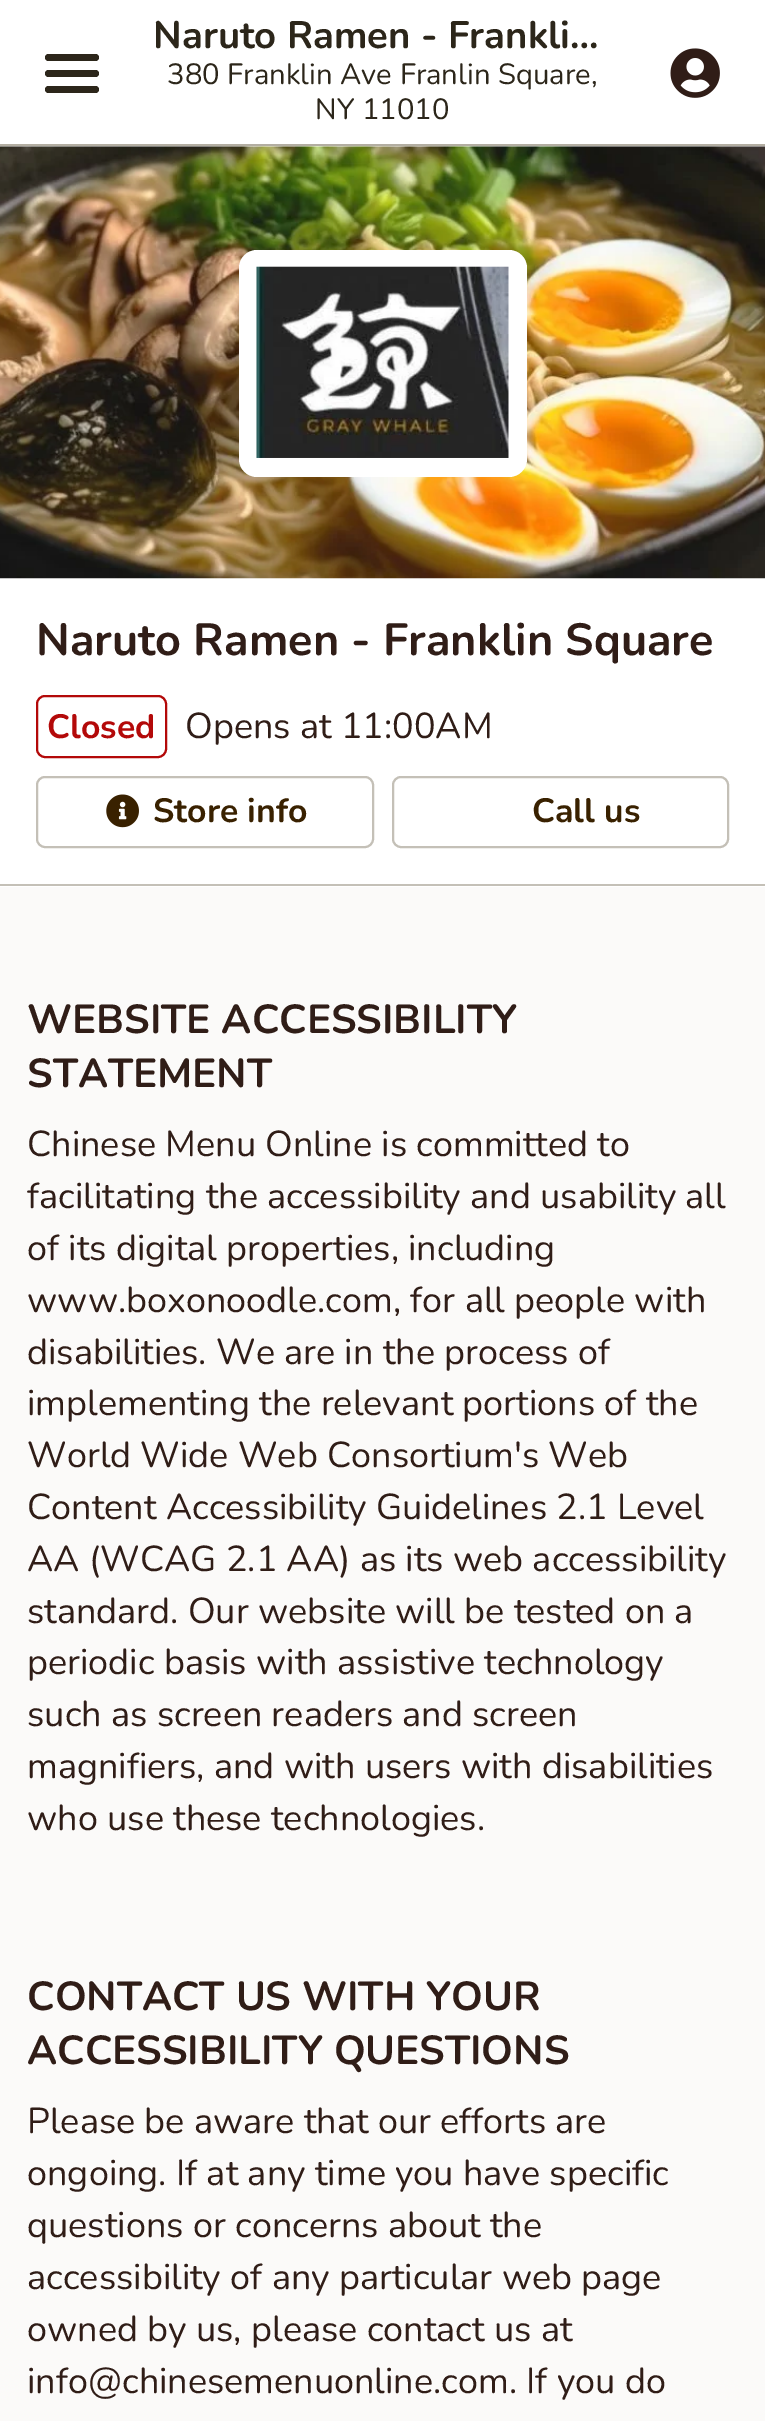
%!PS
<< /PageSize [765 2421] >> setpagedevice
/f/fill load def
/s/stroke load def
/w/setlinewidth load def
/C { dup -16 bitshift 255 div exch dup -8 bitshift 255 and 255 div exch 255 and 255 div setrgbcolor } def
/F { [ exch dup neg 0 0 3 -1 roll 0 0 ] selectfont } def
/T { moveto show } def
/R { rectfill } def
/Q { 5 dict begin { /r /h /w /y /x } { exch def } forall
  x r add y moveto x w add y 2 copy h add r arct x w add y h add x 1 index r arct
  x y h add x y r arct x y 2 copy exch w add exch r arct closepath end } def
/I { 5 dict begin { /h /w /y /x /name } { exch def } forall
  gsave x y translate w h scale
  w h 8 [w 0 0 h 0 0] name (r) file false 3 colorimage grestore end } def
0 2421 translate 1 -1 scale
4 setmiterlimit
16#FBFAF9 C
0 0 765 2421 R
16#B3AEA2 C
0 144 765 2 R
16#FFFFFF C
0 0 765 144 R
16#2C261A C
45 54 54 7 3.5 Q f
45 70 54 7 3.5 Q f
45 86 54 7 3.5 Q f
/Nunito-Bold 38.25 F
(Naruto Ramen - Frankli…) 153 48 T
/Nunito-Regular 29.25 F
(380 Franklin Ave Franlin Square,) 167 84 T
(NY 11010) 315 119 T
(1.rgb) 670 48 50 50 I
16#FFFFFF C
0 146 765 741 R
16#C4C0B7 C
0 884 765 2 R
(2.rgb) 0 146 765 433 I
16#FFFFFF C
239 250 288 227 18 Q f
(3.rgb) 256 266 253 192 I
/Nunito-Bold 45 F
16#301D17 C
(Naruto Ramen - Franklin Square) 36 655 T
16#B30909 C
2 w
37 696 129 61 8 Q s
/Nunito-Bold 33.75 F
(Closed) 47 738 T
/Nunito-Regular 36 F
16#301D17 C
(Opens at 11:00AM) 185 738 T
16#C4C0B7 C
37 777 336 70 8 Q s
(4.rgb) 106 794 33 34 I
/Nunito-Bold 33.75 F
16#392100 C
(Store info) 153 822 T
16#C4C0B7 C
393 777 335 70 8 Q s
16#392100 C
(Call us) 532 822 T
/Nunito-Bold 40.5 F
16#301D17 C
(WEBSITE ACCESSIBILITY) 27 1033 T
(STATEMENT) 27 1087 T
/Nunito-Regular 36 F
(Chinese Menu Online is committed to) 27 1156 T
(facilitating the accessibility and usability all) 27 1208 T
(of its digital properties, including) 27 1260 T
(www.boxonoodle.com, for all people with) 27 1312 T
(disabilities. We are in the process of) 27 1364 T
(implementing the relevant portions of the) 27 1415 T
(World Wide Web Consortium's Web) 27 1467 T
(Content Accessibility Guidelines 2.1 Level) 27 1519 T
(AA \(WCAG 2.1 AA\) as its web accessibility) 27 1571 T
(standard. Our website will be tested on a) 27 1623 T
(periodic basis with assistive technology) 27 1674 T
(such as screen readers and screen) 27 1726 T
(magnifiers, and with users with disabilities) 27 1778 T
(who use these technologies.) 27 1830 T
/Nunito-Bold 40.5 F
(CONTACT US WITH YOUR) 27 2010 T
(ACCESSIBILITY QUESTIONS) 27 2064 T
/Nunito-Regular 36 F
(Please be aware that our efforts are) 27 2133 T
(ongoing. If at any time you have specific) 27 2185 T
(questions or concerns about the) 27 2237 T
(accessibility of any particular web page) 27 2289 T
(owned by us, please contact us at) 27 2341 T
(info@chinesemenuonline.com. If you do) 27 2393 T
showpage
